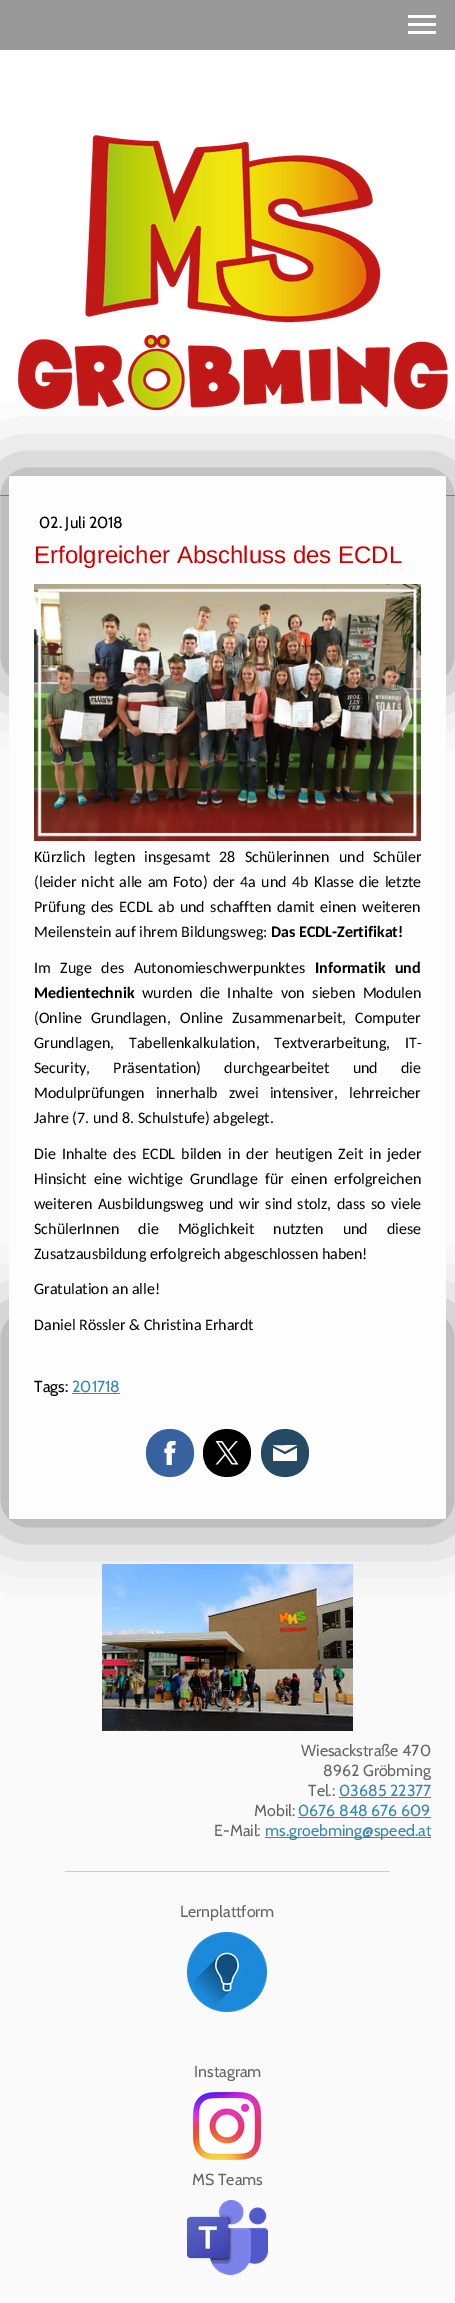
%!PS
<< /PageSize [455 2303] /PageUsesTransparency true >> setpagedevice
/m/moveto load def
/l/rlineto load def
/c/rcurveto load def
/z/closepath load def
/f/fill load def
/C { dup -16 bitshift 255 div exch dup -8 bitshift 255 and 255 div exch 255 and 255 div setrgbcolor } def
/F { [ exch dup neg 0 0 3 -1 roll 0 0 ] selectfont } def
/T { moveto show } def
/R { rectfill } def
/A { dup .setfillconstantalpha .setstrokeconstantalpha } def
/Q { 5 dict begin { /r /h /w /y /x } { exch def } forall
  x r add y moveto x w add y 2 copy h add r arct x w add y h add x 1 index r arct
  x y h add x y r arct x y 2 copy exch w add exch r arct closepath end } def
/S { 12 dict begin { /a /b /q /h /w /y /x } { exch def } forall gsave /was 0 def
  9 -2 -9 { dup b mul 4 div /e exch def 1 sub .425 mul 2.718 exch exp 1 add a .99 .min exch div /now exch def
    1 1 now sub 1 was sub div sub A /was now def
    w h .min e 2 mul add 0 gt { x e sub y e sub w e 2 mul add h e 2 mul add
      q e add b .6 mul add w h .min 2 div e add .min 0 .max Q fill } if } for grestore end } def
/I { 5 dict begin { /h /w /y /x /name } { exch def } forall
  gsave x y translate w h scale
  w h 8 [w 0 0 h 0 0] name (r) file false 3 colorimage grestore end } def
0 .pushpdf14devicefilter
0 2303 translate 1 -1 scale
4 setmiterlimit
16#FFFFFF C
0 0 455 2303 R
16#999999 C
0 0 455 50 R
16#FDFDFD C
408 23 28 3 R
408 15 28 3 R
408 31 28 3 R
(1.rgb) 18 135 430 275 I
16#FAFAFA C
0 496 455 1807 R
16#999999 C
0 495 455 1 R
16#333333 C
9 476 437 200 0 34 .6 S
9 1319 437 200 0 34 .6 S
16#FDFDFD C
9 476 437 1043 2 Q f
/Cabin-Regular 16 F
16#000000 C
(02. Juli 2018) 39 528 T
/LiberationSans-Regular 24 F
16#CE0000 C
(Erfolgreicher Abschluss des ECDL) 34 563 T
(2.rgb) 34 584 387 257 I
/Carlito-Regular 16 F
16#000000 C
34 862 m 5.5 0 32 (Kürzlich legten insgesamt 28 Schülerinnen und Schüler) widthshow
34 887 m 1.75 0 32 (\(leider nicht alle am) widthshow
173 887 m 1.75 0 32 (Foto\) der 4a und 4b Klasse die letzte) widthshow
34 912 m 2 0 32 (Prüfung des ECDL ab und schafften damit einen weiteren) widthshow
(Meilenstein auf ihrem Bildungsweg:) 34 937 T
/Carlito-Bold 16 F
(Das ECDL-Zertifikat!) 271 937 T
/Carlito-Regular 16 F
34 973 m 6 0 32 (Im Zuge des Autonomieschwerpunktes) widthshow
/Carlito-Bold 16 F
315 973 m 6 0 32 (Informatik und) widthshow
(Medientechnik) 34 998 T
/Carlito-Regular 16 F
142 998 m 4 0 32 (wurden die Inhalte von sieben Modulen) widthshow
34 1023 m 5.5 0 32 (\(Online Grundlagen, Online Zusammenarbeit, Computer) widthshow
34 1048 m 11 0 32 (Grundlagen, Tabellenkalkulation, Textverarbeitung, IT-) widthshow
34 1073 m 19.5 0 32 (Security, Präsentation\) durchgearbeitet und die) widthshow
34 1098 m 7.5 0 32 (Modulprüfungen innerhalb zwei intensiver, lehrreicher) widthshow
(Jahre \(7. und 8. Schulstufe\) abgelegt.) 34 1123 T
34 1159 m 2.6 0 32 (Die Inhalte des ECDL bilden in der heutigen Zeit in jeder) widthshow
34 1184 m 3.5 0 32 (Hinsicht eine) widthshow
128 1184 m 3.5 0 32 (wichtige Grundlage für einen erfolgreichen) widthshow
34 1209 m 1.75 0 32 (weiteren Ausbildungsweg und wir sind stolz, dass so viele) widthshow
34 1234 m 15.5 0 32 (SchülerInnen die Möglichkeit nutzten und diese) widthshow
(Zusatzausbildung erfolgreich abgeschlossen haben!) 34 1259 T
(Gratulation an alle!) 34 1294 T
(Daniel Rössler & Christina Erhardt) 34 1330 T
/Cabin-Regular 16 F
(Tags:) 34 1392 T
16#3689B2 C
(201718) 72 1392 T
72 1393 48 1 R
16#38619F C
146 1453 m 0 32 48 32 48 0 c 0 -32 -48 -32 -48 0 c z f
(3.rgb) 164 1441 12 24 I
16#000000 C
203 1453 m 0 32 48 32 48 0 c 0 -32 -48 -32 -48 0 c z f
(4.rgb) 215 1441 24 24 I
16#264A64 C
261 1453 m 0 32 48 32 48 0 c 0 -32 -48 -32 -48 0 c z f
16#FFFFFF C
297 1461 m -24 0 l 0 -13 l 12 6.5 l 12 -6.5 l z 297 1445 m -24 .5 l 12 6 l z f
(5.rgb) 102 1564 251 167 I
16#666666 C
(Wiesackstraße 470) 301 1756 T
(8962 Gröbming) 323 1776 T
(Tel.:) 308 1796 T
16#3689B2 C
(03685 22377) 339 1796 T
339 1797 92 1 R
16#666666 C
(Mobil:) 254 1816 T
16#3689B2 C
(0676 848 676 609) 298 1816 T
298 1817 133 1 R
16#666666 C
(E-Mail:) 214 1836 T
16#3689B2 C
265 1837 166 1 R
(ms.groebming@speed.at) 265 1836 T
16#CCCCCC C
65 1871 325 1 R
16#666666 C
(Lernplattform) 180 1917 T
(6.rgb) 187 1932 80 80 I
(Instagram) 194 2077 T
(7.rgb) 193 2092 68 68 I
(MS Teams) 192 2185 T
(8.rgb) 187 2200 81 75 I
.poppdf14devicefilter showpage
